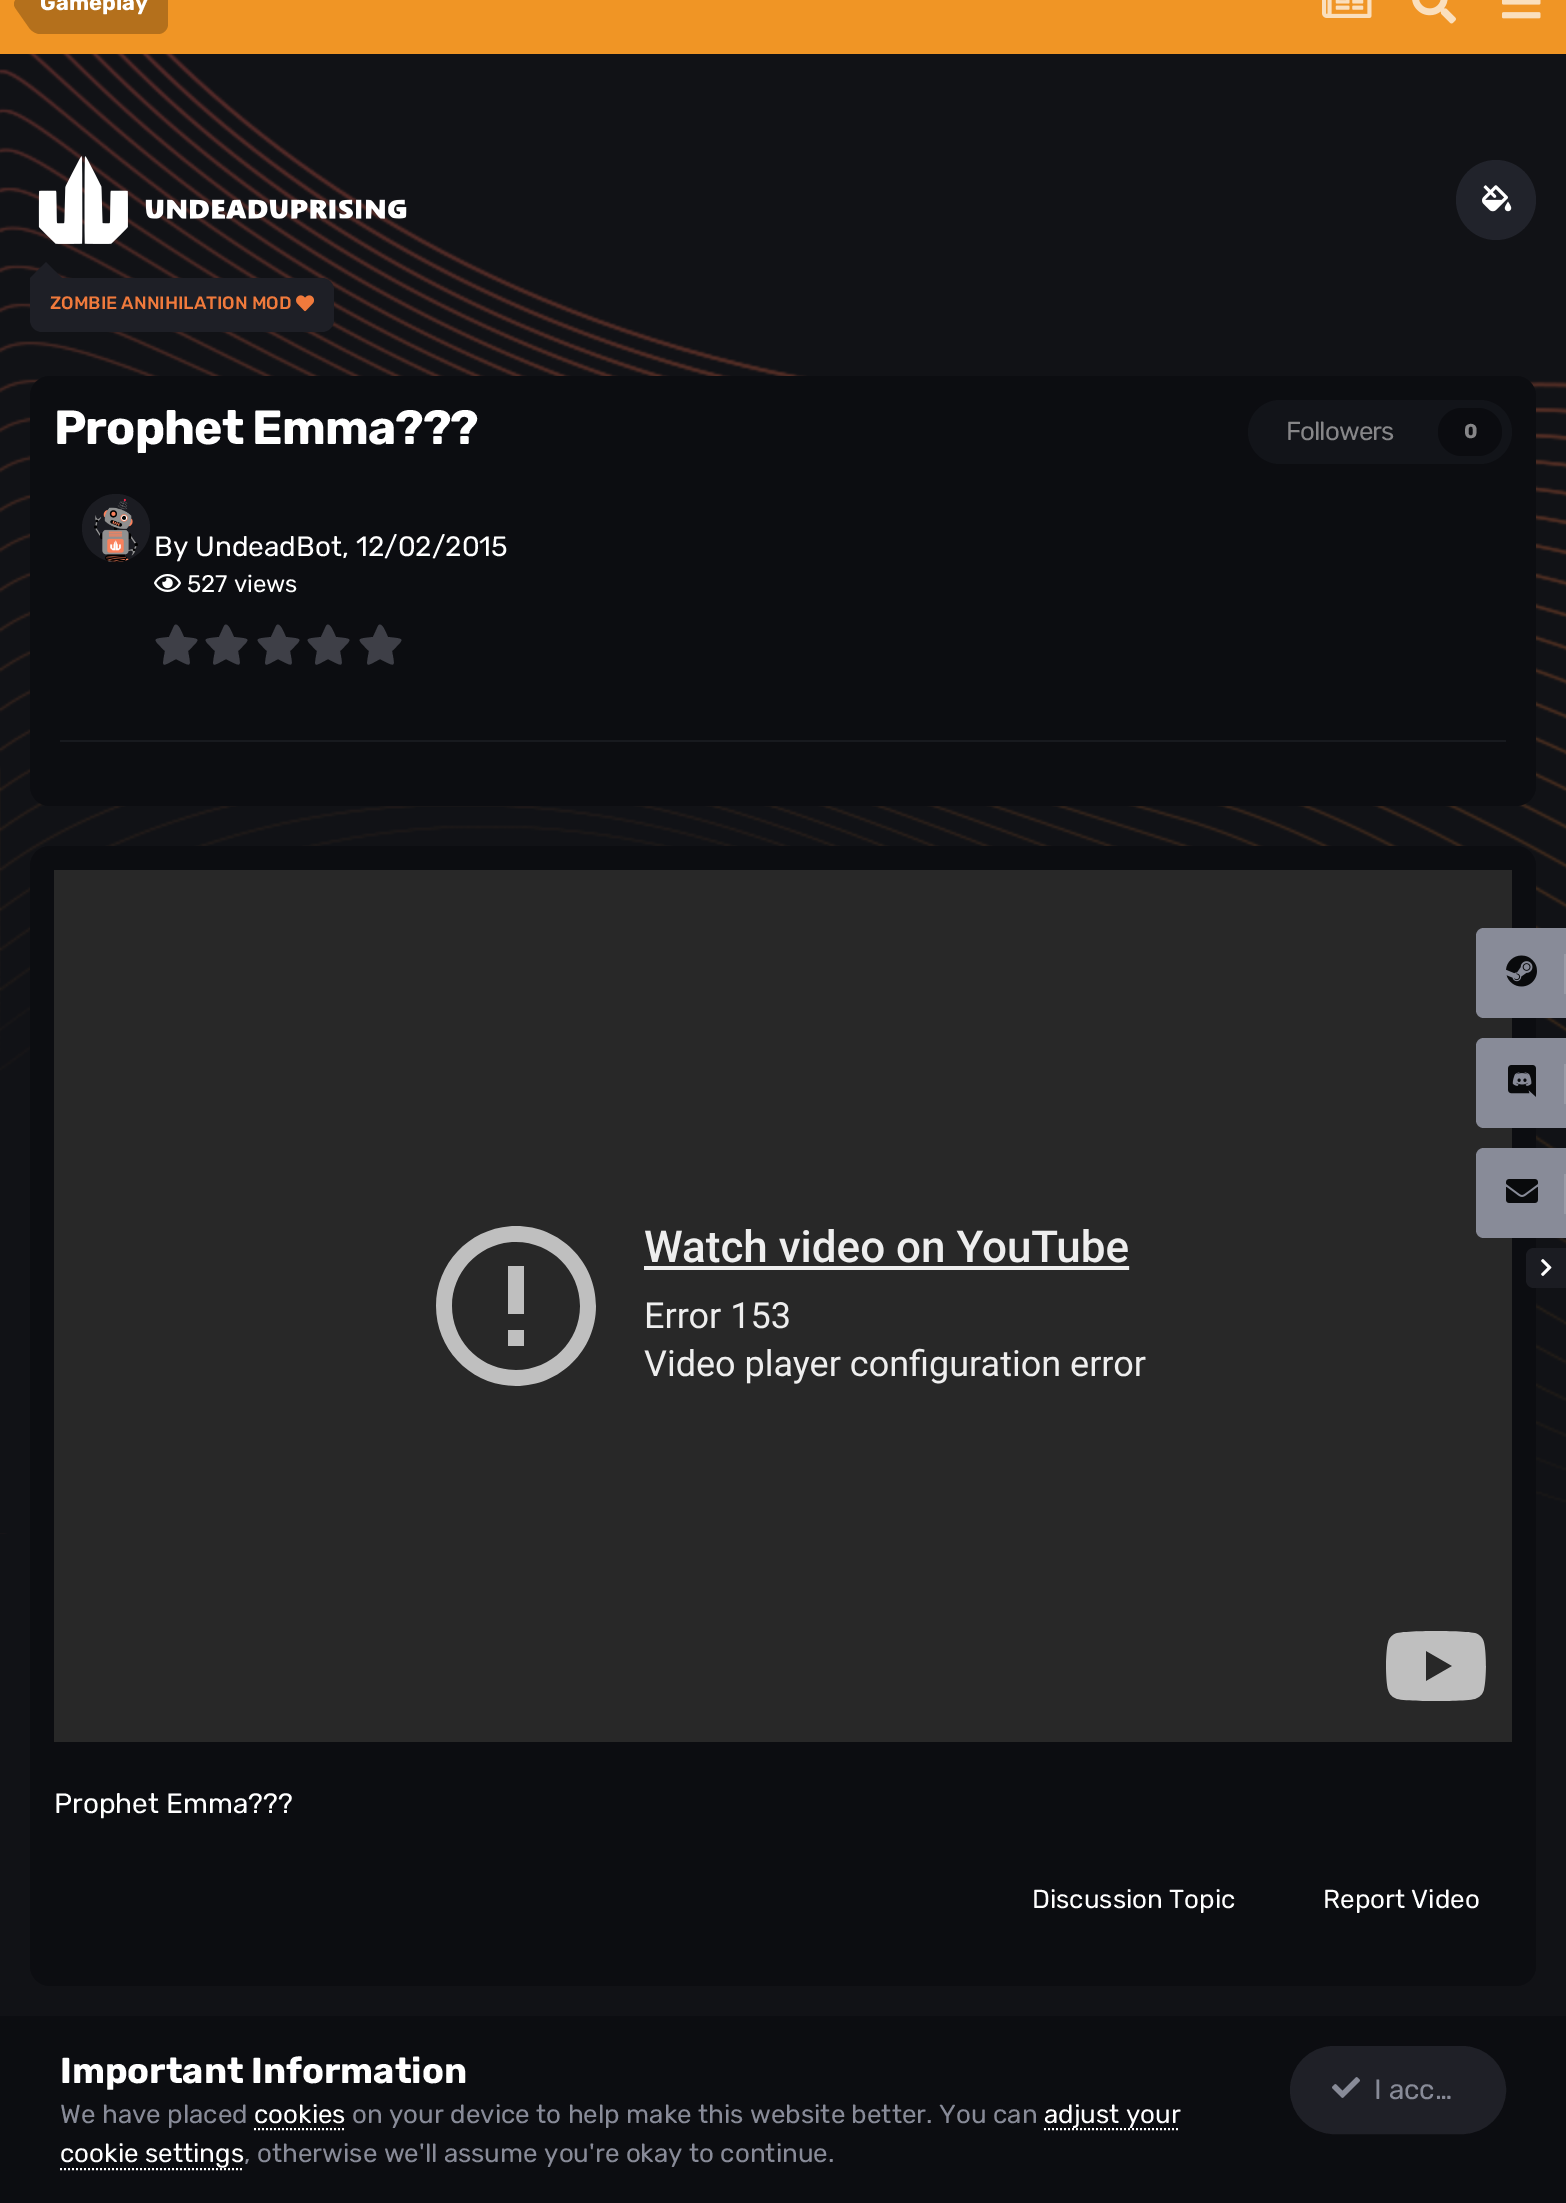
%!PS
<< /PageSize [1566 2203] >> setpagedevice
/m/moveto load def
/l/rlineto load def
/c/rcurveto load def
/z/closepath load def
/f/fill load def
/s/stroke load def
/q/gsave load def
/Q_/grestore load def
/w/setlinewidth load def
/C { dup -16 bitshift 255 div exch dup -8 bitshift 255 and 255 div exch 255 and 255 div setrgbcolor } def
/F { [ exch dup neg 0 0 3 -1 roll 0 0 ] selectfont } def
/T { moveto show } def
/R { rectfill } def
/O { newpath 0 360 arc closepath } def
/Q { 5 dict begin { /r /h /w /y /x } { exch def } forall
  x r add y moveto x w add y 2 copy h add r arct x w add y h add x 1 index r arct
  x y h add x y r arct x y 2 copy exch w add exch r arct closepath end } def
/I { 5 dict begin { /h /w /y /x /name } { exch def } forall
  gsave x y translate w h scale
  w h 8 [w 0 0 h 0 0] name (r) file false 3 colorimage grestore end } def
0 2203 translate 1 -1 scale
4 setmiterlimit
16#111216 C
0 0 1566 2203 R
16#F09525 C
0 0 1566 54 R
16#B4701C C
40 -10 m 118 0 l 5.5 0 10 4.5 10 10 c 0 24 l 0 5.5 -4.5 10 -10 10 c -118 0 l z f
40 4 m 0 30 l -3.5 0 -7 -2 -10 -5 c -15 -21.5 l -.5 -1 -1 -2 -1 -3.5 c z 40 4 m -26 0 l 0 -1.5 .5 -2.5 1 -3.5 c 15 -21.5 l 3 -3 6.5 -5 10 -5 c z f
/Rubik-Bold 22 F
16#FFFFFF C
(Gameplay) 40 10 T
(1.rgb) 1322 0 50 18 I
(2.rgb) 1412 0 44 24 I
(3.rgb) 1502 0 39 19 I
(4.rgb) 0 54 1566 1480 I
16#21232B C
1496 200 40 O f
(5.rgb) 1482 185 30 27 I
(6.rgb) 38 156 369 88 I
16#1E1F26 C
30 278 m 292 0 l 6.5 0 12 5.5 12 12 c 0 30 l 0 6.5 -5.5 12 -12 12 c -280 0 l -6.5 0 -12 -5.5 -12 -12 c z f
62 278 m -32 0 l 16 -16 l z f
/Rubik-Medium 18 F
16#F07A3C C
(ZOMBIE ANNIHILATION MOD) 50 309 T
(7.rgb) 296 295 18 17 I
16#0C0D11 C
30 376 1506 430 20 Q f
/Rubik-Bold 48 F
16#FFFFFF C
54 444 m -1 0 (Prophet Emma???) ashow
16#121419 C
1248 400 264 64 32 Q f
/Rubik-Regular 26 F
16#868688 C
1286 440 m -1 0 (Followers) ashow
16#0B0C10 C
1438 408 64 48 24 Q f
/Rubik-Bold 20 F
16#868688 C
1464 438 m -1 0 (0) ashow
16#181A1F C
60 740 1446 2 R
16#1B1C22 C
116 528 34 O f
(8.rgb) 94 498 44 64 I
/Rubik-Regular 28 F
16#FFFFFF C
(By UndeadBot, 12/02/2015) 154 556 T
(9.rgb) 154 574 27 18 I
/Rubik-Regular 24 F
(527 views) 187 592 T
16#3E3F47 C
174 626 m 4 -6 9 10 10 11 c 17 2 17 1 4 14 c 3 17 4 16 -12 8 c -15 8 -14 9 -11 -8 c -13 -13 -13 -12 4 -14 c z f
224 626 m 4 -6 9 10 10 11 c 17 2 17 1 4 14 c 3 17 4 16 -12 8 c -15 8 -14 9 -11 -8 c -13 -13 -13 -12 4 -14 c z f
276 626 m 4 -6 9 10 10 11 c 17 2 17 1 4 14 c 3 17 4 16 -12 8 c -15 8 -14 9 -11 -8 c -13 -13 -13 -12 4 -14 c z f
326 626 m 4 -6 9 10 10 11 c 17 2 17 1 4 14 c 3 17 4 16 -12 8 c -15 8 -14 9 -11 -8 c -13 -13 -13 -12 4 -14 c z f
378 626 m 4 -6 9 10 10 11 c 17 2 17 1 4 14 c 3 17 4 16 -12 8 c -15 8 -14 9 -11 -8 c -13 -13 -13 -12 4 -14 c z f
16#0C0D11 C
30 846 1506 1140 20 Q f
(10.rgb) 54 870 1458 872 I
/Rubik-Regular 28 F
16#FFFFFF C
(Prophet Emma???) 54 1813 T
/Rubik-Regular 26 F
(Discussion Topic) 1032 1908 T
(Report Video) 1323 1908 T
16#888B98 C
1484 928 m 82 0 l 0 90 l -82 0 l -4.5 0 -8 -3.5 -8 -8 c 0 -74 l 0 -4.5 3.5 -8 8 -8 c z f
(11.rgb) 1506 955 31 32 I
16#999BA6 C
1564 954 2 40 R
16#888B98 C
1484 1038 m 82 0 l 0 90 l -82 0 l -4.5 0 -8 -3.5 -8 -8 c 0 -74 l 0 -4.5 3.5 -8 8 -8 c z f
(12.rgb) 1508 1065 28 32 I
16#999BA6 C
1564 1064 2 40 R
16#888B98 C
1484 1148 m 82 0 l 0 90 l -82 0 l -4.5 0 -8 -3.5 -8 -8 c 0 -74 l 0 -4.5 3.5 -8 8 -8 c z f
(13.rgb) 1506 1179 32 24 I
16#999BA6 C
1564 1174 2 40 R
16#1B1C22 C
1534 1248 m 32 0 l 0 40 l -32 0 l -4.5 0 -8 -3.5 -8 -8 c 0 -24 l 0 -4.5 3.5 -8 8 -8 c z f
(14.rgb) 1541 1259 11 17 I
16#0C0D11 C
0 2016 1566 187 R
/Rubik-Bold 36 F
16#FFFFFF C
(Important Information) 60 2083 T
/Rubik-Regular 26 F
16#888B98 C
(We have placed) 60 2123 T
16#FFFFFF C
(cookies) 254 2123 T
2 w
[2 2] 0 setdash
254 2129 m 92 0 l s
16#888B98 C
(on your device to help make this website better. You can) 352 2123 T
16#FFFFFF C
(adjust your) 1044 2123 T
1044 2129 m 136 0 l s
(cookie settings) 60 2162 T
60 2169 m 184 0 l s
16#888B98 C
(, otherwise we'll assume you're okay to continue.) 244 2162 T
16#1F2027 C
1291 2047 214 86 43 Q q f Q_
[] 0 setdash
s
(15.rgb) 1332 2077 28 21 I
/Rubik-Regular 28 F
16#888B98 C
(I acc…) 1374 2099 T
showpage
